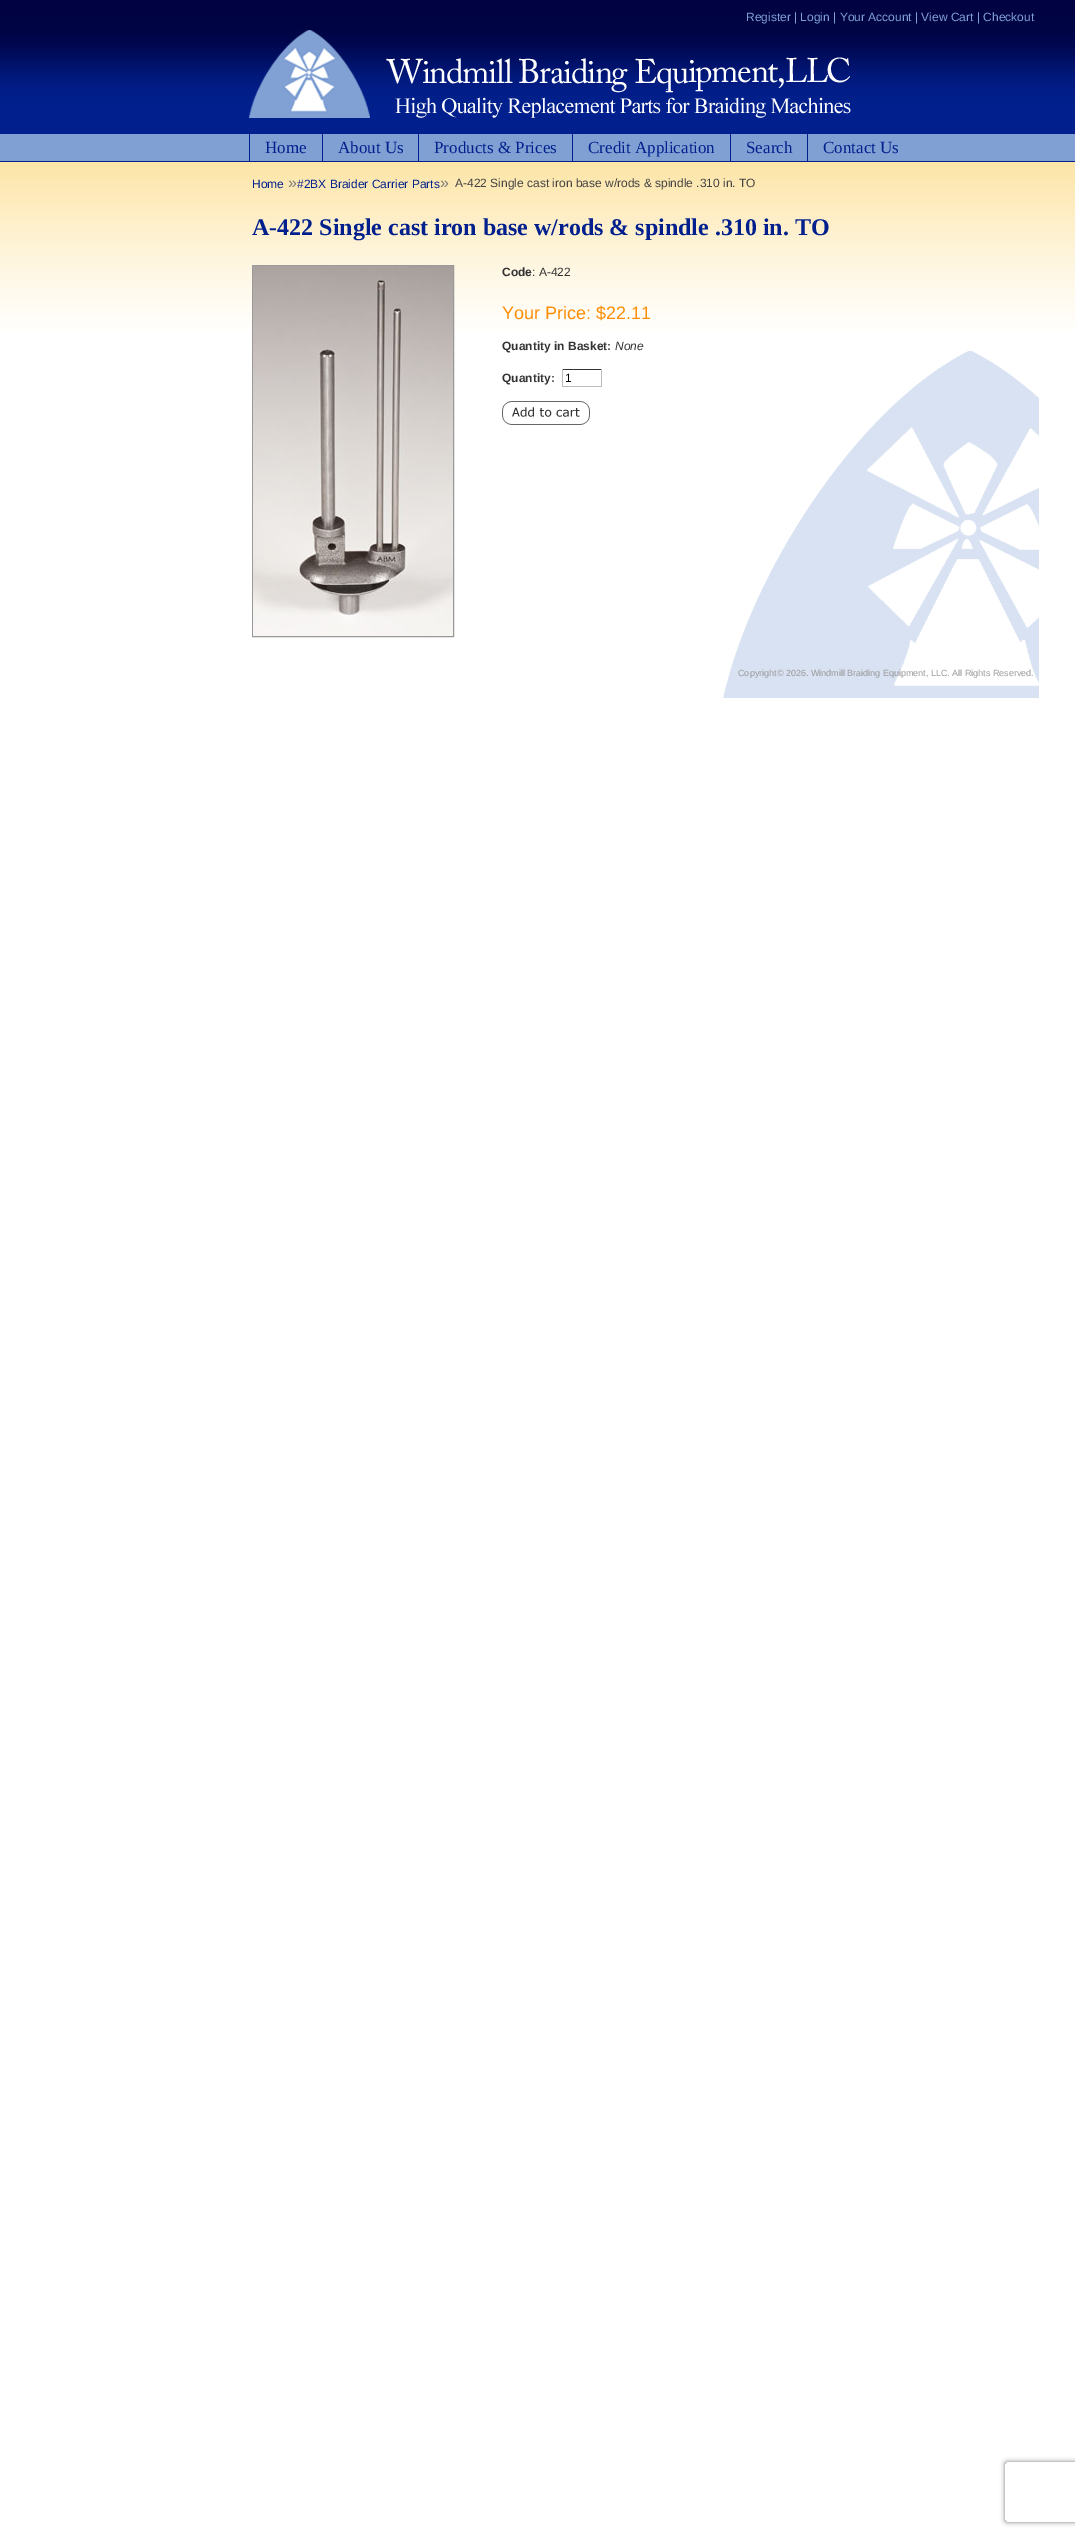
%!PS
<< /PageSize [1075 2536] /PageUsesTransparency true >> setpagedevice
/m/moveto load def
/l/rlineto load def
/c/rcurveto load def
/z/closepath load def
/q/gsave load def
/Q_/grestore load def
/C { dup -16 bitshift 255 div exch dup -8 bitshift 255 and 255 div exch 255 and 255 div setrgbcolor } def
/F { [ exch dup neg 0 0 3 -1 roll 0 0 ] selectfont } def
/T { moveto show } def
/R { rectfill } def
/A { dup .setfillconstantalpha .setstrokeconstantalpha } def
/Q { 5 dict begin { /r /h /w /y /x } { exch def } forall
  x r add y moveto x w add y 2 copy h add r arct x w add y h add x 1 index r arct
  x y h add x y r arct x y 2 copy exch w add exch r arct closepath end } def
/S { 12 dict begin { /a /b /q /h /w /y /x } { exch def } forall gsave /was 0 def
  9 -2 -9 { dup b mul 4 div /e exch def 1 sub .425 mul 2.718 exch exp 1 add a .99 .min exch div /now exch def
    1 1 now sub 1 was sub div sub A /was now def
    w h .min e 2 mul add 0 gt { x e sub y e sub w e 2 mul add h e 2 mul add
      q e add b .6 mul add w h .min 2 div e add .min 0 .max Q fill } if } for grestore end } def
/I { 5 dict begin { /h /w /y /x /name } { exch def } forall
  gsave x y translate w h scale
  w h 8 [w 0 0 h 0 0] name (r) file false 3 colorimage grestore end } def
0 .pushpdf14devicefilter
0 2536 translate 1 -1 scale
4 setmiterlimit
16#FFFFFF C
0 0 1075 2536 R
(1.rgb) 0 0 1075 330 I
(2.rgb) 723 351 316 347 I
/LiberationSans-Regular 12 F
16#80A0D3 C
(Register | Login | Your Account | View Cart | Checkout) 746 21 T
(3.rgb) 249 30 602 88 I
16#01208D C
249 134 1 27 R
/LiberationSerif-Regular 17 F
(Home) 265 153 T
322 134 1 27 R
(About Us) 338 153 T
418 134 1 27 R
(Products & Prices) 434 153 T
572 134 1 27 R
(Credit Application) 588 153 T
730 134 1 27 R
(Search) 746 153 T
807 134 1 27 R
(Contact Us) 823 153 T
/LiberationSans-Regular 12 F
(Home) 252 188 T
/LiberationSans-Regular 16 F
16#777777 C
(») 288 188 T
/LiberationSans-Regular 12 F
16#01208D C
(#2BX Braider Carrier Parts) 297 188 T
/LiberationSans-Regular 16 F
16#777777 C
(») 440 188 T
/LiberationSans-Regular 12 F
16#434343 C
(A-422 Single cast iron base w/rods & spindle .310 in. TO) 455 187 T
/LiberationSerif-Bold 24 F
16#01208D C
(A-422 Single cast iron base w/rods & spindle .310 in. TO) 252 235 T
16#999999 C
252.5 265.5 201 371 rectstroke
(4.rgb) 253 266 200 370 I
/LiberationSans-Bold 12 F
16#333333 C
(Code) 502 276 T
/LiberationSans-Regular 12 F
(: A-422) 532 276 T
/LiberationSans-Regular 18 F
16#FE8D06 C
(Your Price: $22.11) 502 319 T
/LiberationSans-Bold 12 F
16#333333 C
(Quantity in Basket:) 502 350 T
/LiberationSans-Italic 12 F
(None) 615 350 T
/LiberationSans-Bold 12 F
(Quantity:) 502 382 T
562 369 40 1 R
16#BBBBBB C
601 369 1 18 R
562 386 40 1 R
562 369 1 18 R
/LiberationSans-Regular 12 F
16#000000 C
(1) 565 382 T
(5.rgb) 502 401 88 24 I
/LiberationSans-Regular 9 F
16#999999 C
(Copyright© 2026. Windmill Braiding Equipment, LLC. All Rights Reserved.) 738 676 T
q
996 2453 m 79 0 l 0 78 l -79 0 l z 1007 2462 m 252 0 l 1 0 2 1 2 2 c 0 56 l 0 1 -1 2 -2 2 c -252 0 l -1 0 -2 -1 -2 -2 c 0 -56 l 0 -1 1 -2 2 -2 c z eoclip newpath
16#808080 C
1005 2462 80 60 2 2.5 1 S
Q_
.poppdf14devicefilter showpage
